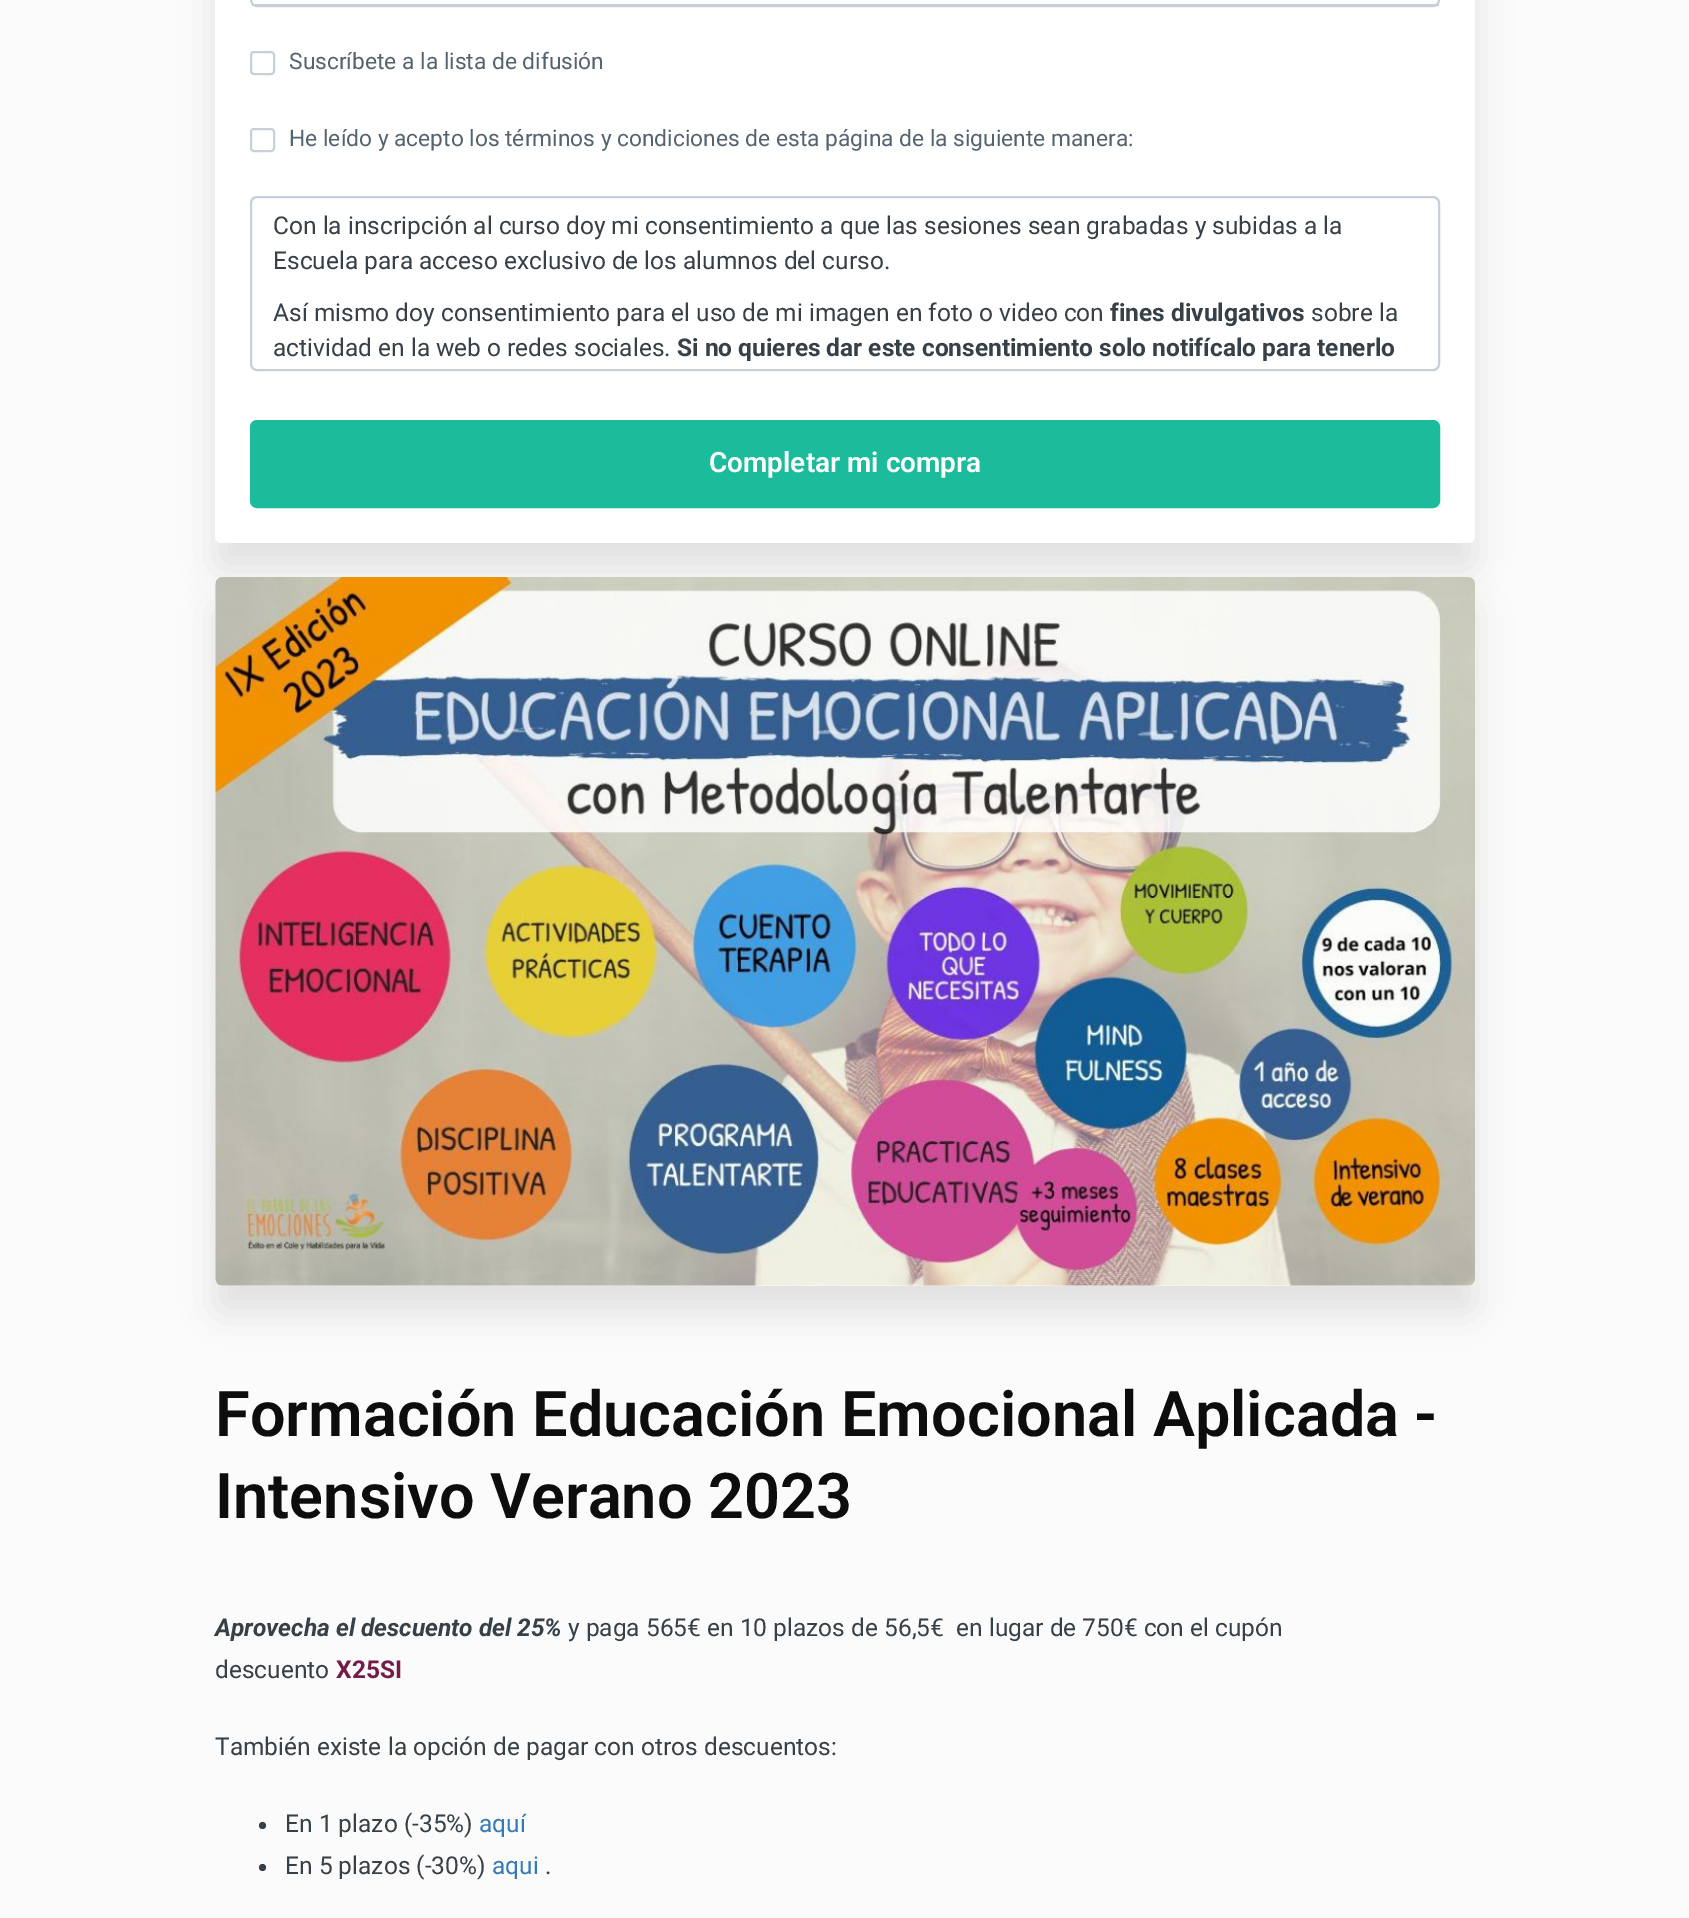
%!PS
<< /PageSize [1689 1918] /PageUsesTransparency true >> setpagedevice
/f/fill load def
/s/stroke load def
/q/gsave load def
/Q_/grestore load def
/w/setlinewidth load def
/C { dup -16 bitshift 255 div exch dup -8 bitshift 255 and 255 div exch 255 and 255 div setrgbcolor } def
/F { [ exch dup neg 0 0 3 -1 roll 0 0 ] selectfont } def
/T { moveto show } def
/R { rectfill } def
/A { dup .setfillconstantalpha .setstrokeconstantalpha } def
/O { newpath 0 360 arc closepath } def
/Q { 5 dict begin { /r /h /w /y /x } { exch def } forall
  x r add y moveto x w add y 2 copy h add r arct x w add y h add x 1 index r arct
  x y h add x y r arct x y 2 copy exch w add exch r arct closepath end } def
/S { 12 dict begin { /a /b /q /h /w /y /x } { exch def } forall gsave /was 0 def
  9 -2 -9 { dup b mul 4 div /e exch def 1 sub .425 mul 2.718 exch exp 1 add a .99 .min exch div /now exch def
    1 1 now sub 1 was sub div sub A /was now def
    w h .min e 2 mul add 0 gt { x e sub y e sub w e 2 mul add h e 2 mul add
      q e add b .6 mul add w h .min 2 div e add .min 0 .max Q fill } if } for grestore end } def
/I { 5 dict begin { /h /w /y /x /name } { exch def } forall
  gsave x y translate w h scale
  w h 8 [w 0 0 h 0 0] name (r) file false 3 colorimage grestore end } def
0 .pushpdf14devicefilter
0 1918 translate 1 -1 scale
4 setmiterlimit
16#FBFBFB C
0 0 1689 1918 R
16#000000 C
215 -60 1260 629 7 17.5 .1 S
16#FFFFFF C
215 -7 1260 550 7 Q f
16#C7CFD8 C
2 w
251 -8 1188 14 6 Q s
252 4 1187 2 R
251 52 23 22 3 Q s
/Roboto-Regular 22.75 F
16#556370 C
(Suscríbete a la lista de difusión) 289 69 T
16#C7CFD8 C
251 129 23 22 3 Q s
16#556370 C
(He leído y acepto los términos y condiciones de esta página de la siguiente manera:) 289 146 T
16#C7CFD8 C
251 197 1188 173 6 Q s
/Roboto-Regular 24.5 F
16#373F47 C
(Con la inscripción al curso doy mi consentimiento a que las sesiones sean grabadas y subidas a la) 273 234 T
(Escuela para acceso exclusivo de los alumnos del curso.) 273 269 T
(Así mismo doy consentimiento para el uso de mi imagen en foto o video con) 273 321 T
/Roboto-Bold 24.5 F
(fines divulgativos) 1110 321 T
/Roboto-Regular 24.5 F
(sobre la) 1311 321 T
(actividad en la web o redes sociales.) 273 356 T
/Roboto-Bold 24.5 F
(Si no quieres dar este consentimiento solo notifícalo para tenerlo) 677 356 T
16#1ABC9C C
251 421 1188 86 6 Q q f Q_
s
/Roboto-SemiBold 28 F
16#FFFFFF C
(Completar mi compra) 709 472 T
16#000000 C
215 604 1260 709 7 17.5 .1 S
(1.rgb) 215 577 1261 709 I
/Roboto-SemiBold 63 F
16#0D0D0D C
(Formación Educación Emocional Aplicada -) 215 1436 T
(Intensivo Verano 2023) 215 1518 T
/Roboto-BoldItalic 24.5 F
16#373F47 C
(Aprovecha el descuento del 25%) 215 1636 T
/Roboto-Regular 24.5 F
(y paga 565€ en 10 plazos de 56,5€  en lugar de 750€ con el cupón) 568 1636 T
(descuento) 215 1678 T
/Roboto-Bold 24.5 F
16#741B47 C
(X25SI) 336 1678 T
/Roboto-Regular 24.5 F
16#373F47 C
(También existe la opción de pagar con otros descuentos:) 215 1755 T
262.5 1825.5 3.5 O f
(En 1 plazo \(-35%\)) 285 1832 T
16#337AB7 C
(aquí) 479 1832 T
16#373F47 C
262.5 1867.5 3.5 O f
(En 5 plazos \(-30%\)) 285 1874 T
16#337AB7 C
(aqui) 492 1874 T
16#373F47 C
(.) 545 1874 T
.poppdf14devicefilter showpage
